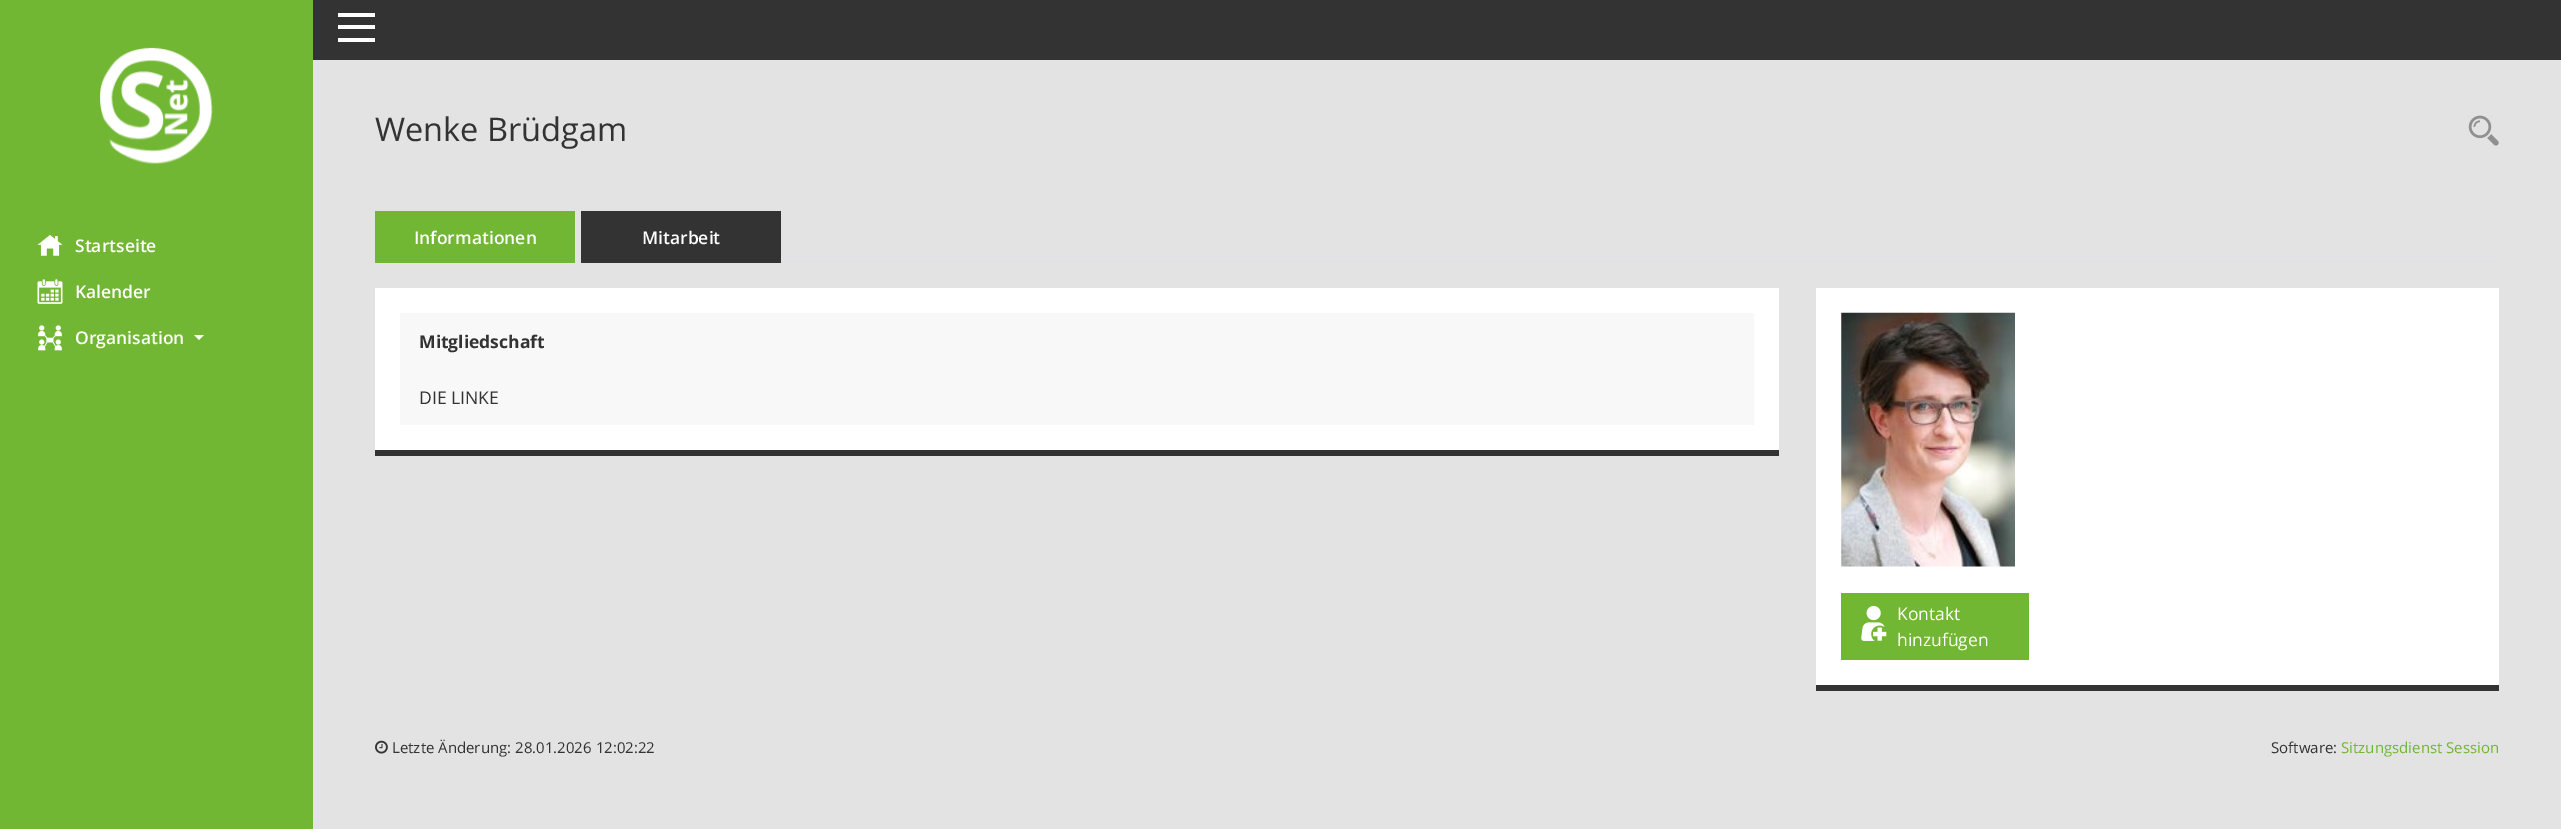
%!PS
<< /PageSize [2561 829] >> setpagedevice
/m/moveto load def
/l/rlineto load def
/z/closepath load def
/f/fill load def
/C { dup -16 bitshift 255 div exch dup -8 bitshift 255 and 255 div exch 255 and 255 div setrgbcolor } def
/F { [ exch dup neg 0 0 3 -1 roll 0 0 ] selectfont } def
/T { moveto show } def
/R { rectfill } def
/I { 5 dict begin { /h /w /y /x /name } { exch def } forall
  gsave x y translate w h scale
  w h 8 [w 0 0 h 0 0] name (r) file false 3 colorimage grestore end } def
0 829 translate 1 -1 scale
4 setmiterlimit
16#E3E3E3 C
0 0 2561 829 R
16#71B733 C
0 0 313 829 R
(1.rgb) 100 47 113 117 I
(2.rgb) 37 235 26 21 I
/OpenSans-SemiBold 17.5 F
16#FFFFFF C
(Startseite) 75 252 T
(3.rgb) 37 279 26 25 I
(Kalender) 75 298 T
(4.rgb) 38 325 24 26 I
(Organisation) 75 344 T
194 335 m 10 0 l -5 5 l z f
16#333333 C
313 0 2248 60 R
16#FFFFFF C
338 13 37 4 R
338 25 37 4 R
338 38 37 4 R
/OpenSans-Regular 32.5 F
16#333333 C
(Wenke Brüdgam) 375 141 T
(5.rgb) 2468 115 31 31 I
16#DEE2E6 C
575 261 1924 1 R
16#71B733 C
375 211 200 52 R
/OpenSans-SemiBold 17.5 F
16#FFFFFF C
(Informationen) 414 244 T
16#333333 C
581 211 200 52 R
16#FFFFFF C
(Mitarbeit) 642 244 T
375 288 1404 162 R
16#333333 C
375 450 1404 6 R
16#F8F8F8 C
400 313 1354 112 R
/OpenSans-Bold 17.5 F
16#333333 C
(Mitgliedschaft) 419 348 T
/OpenSans-Regular 17.5 F
(DIE LINKE) 419 404 T
16#FFFFFF C
1816 288 683 397 R
16#333333 C
1816 685 683 6 R
(6.rgb) 1841 312 174 255 I
16#71B733 C
1841 593 188 67 R
(7.rgb) 1861 605 26 36 I
16#FFFFFF C
(Kontakt) 1897 620 T
(hinzufügen) 1897 646 T
(8.rgb) 375 740 13 14 I
/OpenSans-Regular 15 F
16#333333 C
(Letzte Änderung: 28.01.2026 12:02:22) 392 753 T
(Software:) 2271 753 T
16#71B733 C
(Sitzungsdienst Session) 2341 753 T
showpage
